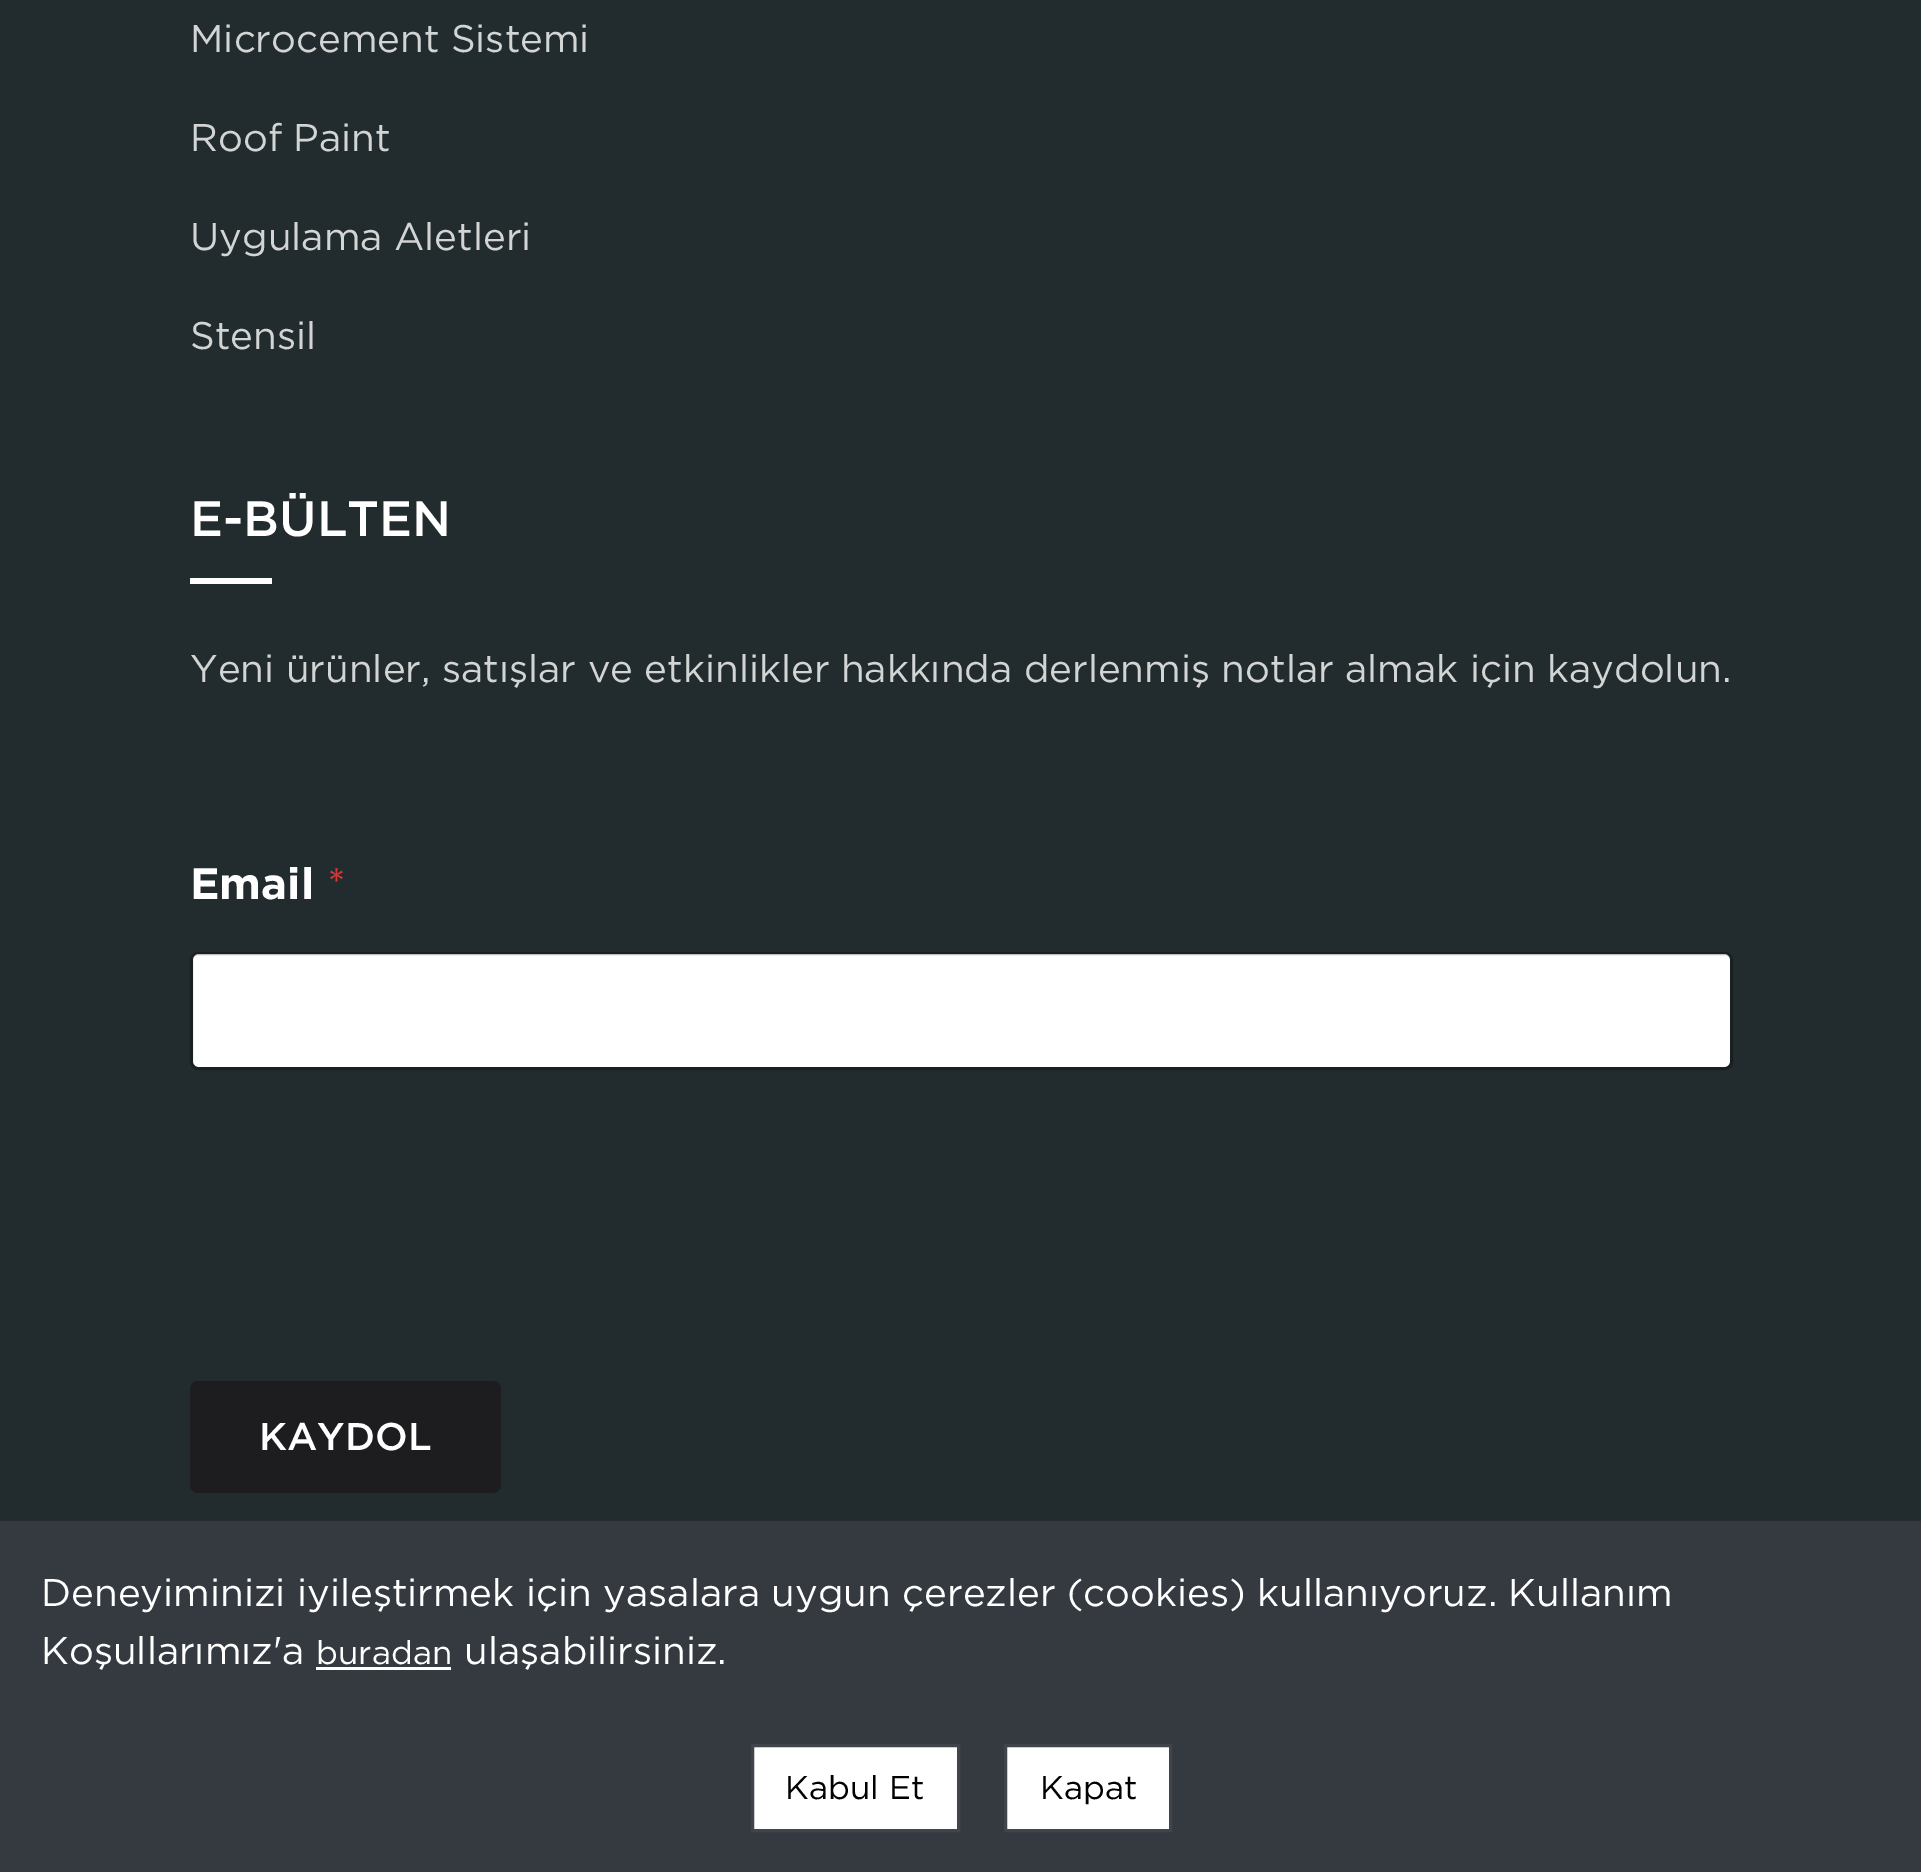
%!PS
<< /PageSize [1921 1872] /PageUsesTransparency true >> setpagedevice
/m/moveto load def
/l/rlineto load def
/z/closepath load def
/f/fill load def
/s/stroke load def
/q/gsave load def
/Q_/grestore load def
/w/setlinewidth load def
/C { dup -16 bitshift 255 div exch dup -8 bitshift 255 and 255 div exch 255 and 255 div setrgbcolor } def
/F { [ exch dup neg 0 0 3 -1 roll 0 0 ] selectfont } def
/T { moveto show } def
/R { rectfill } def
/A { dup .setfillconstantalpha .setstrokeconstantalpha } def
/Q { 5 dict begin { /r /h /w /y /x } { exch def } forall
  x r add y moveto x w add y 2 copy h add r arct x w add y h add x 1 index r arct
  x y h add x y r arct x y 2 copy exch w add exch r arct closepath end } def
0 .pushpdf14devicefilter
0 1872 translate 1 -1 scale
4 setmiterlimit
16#222B2D C
0 0 1921 1872 R
/Gotham-Regular 38.5 F
16#D3D5D5 C
(Microcement Sistemi) 190 52 T
(Roof Paint) 190 151 T
(Uygulama Aletleri) 190 250 T
(Stensil) 190 349 T
/Gotham-Medium 49.5 F
16#FFFFFF C
(E-BÜLTEN) 190 536 T
190 578 82 6 R
/Gotham-Regular 38.5 F
16#D3D5D5 C
(Yeni ürünler, satışlar ve etkinlikler hakkında derlenmiş notlar almak için kaydolun.) 190 682 T
/Gotham-Bold 44 F
16#FFFFFF C
(Email) 190 899 T
/Gotham-Regular 44 F
16#D63637 C
(*) 327 899 T
16#FFFFFF C
193 954 1537 113 6 Q f
0.25 A
16#000000 C
3 w
191.5 953.5 1540 115 6.5 Q s
1 A
16#1D1D1F C
190 1381 311 112 8 Q f
/Gotham-Medium 38.5 F
16#FFFFFF C
(KAYDOL) 259 1450 T
16#343A40 C
0 1521 1921 351 R
/Gotham-Regular 38.5 F
16#FFFFFF C
(Deneyiminizi iyileştirmek için yasalara uygun çerezler \(cookies\) kullanıyoruz. Kullanım) 41 1606 T
(Koşullarımız'a) 41 1664 T
/Gotham-Regular 33 F
(buradan) 316 1664 T
316 1667 135 3 R
/Gotham-Regular 38.5 F
(ulaşabilirsiniz.) 464 1664 T
752.5 1745.5 m 206 0 l 0 85 l -206 0 l z q f Q_
16#41444B C
s
/Gotham-Regular 33 F
16#000000 C
(Kabul Et) 785 1799 T
16#FFFFFF C
1005.5 1745.5 m 165 0 l 0 85 l -165 0 l z q f Q_
16#41444B C
s
16#000000 C
(Kapat) 1040 1799 T
.poppdf14devicefilter showpage
